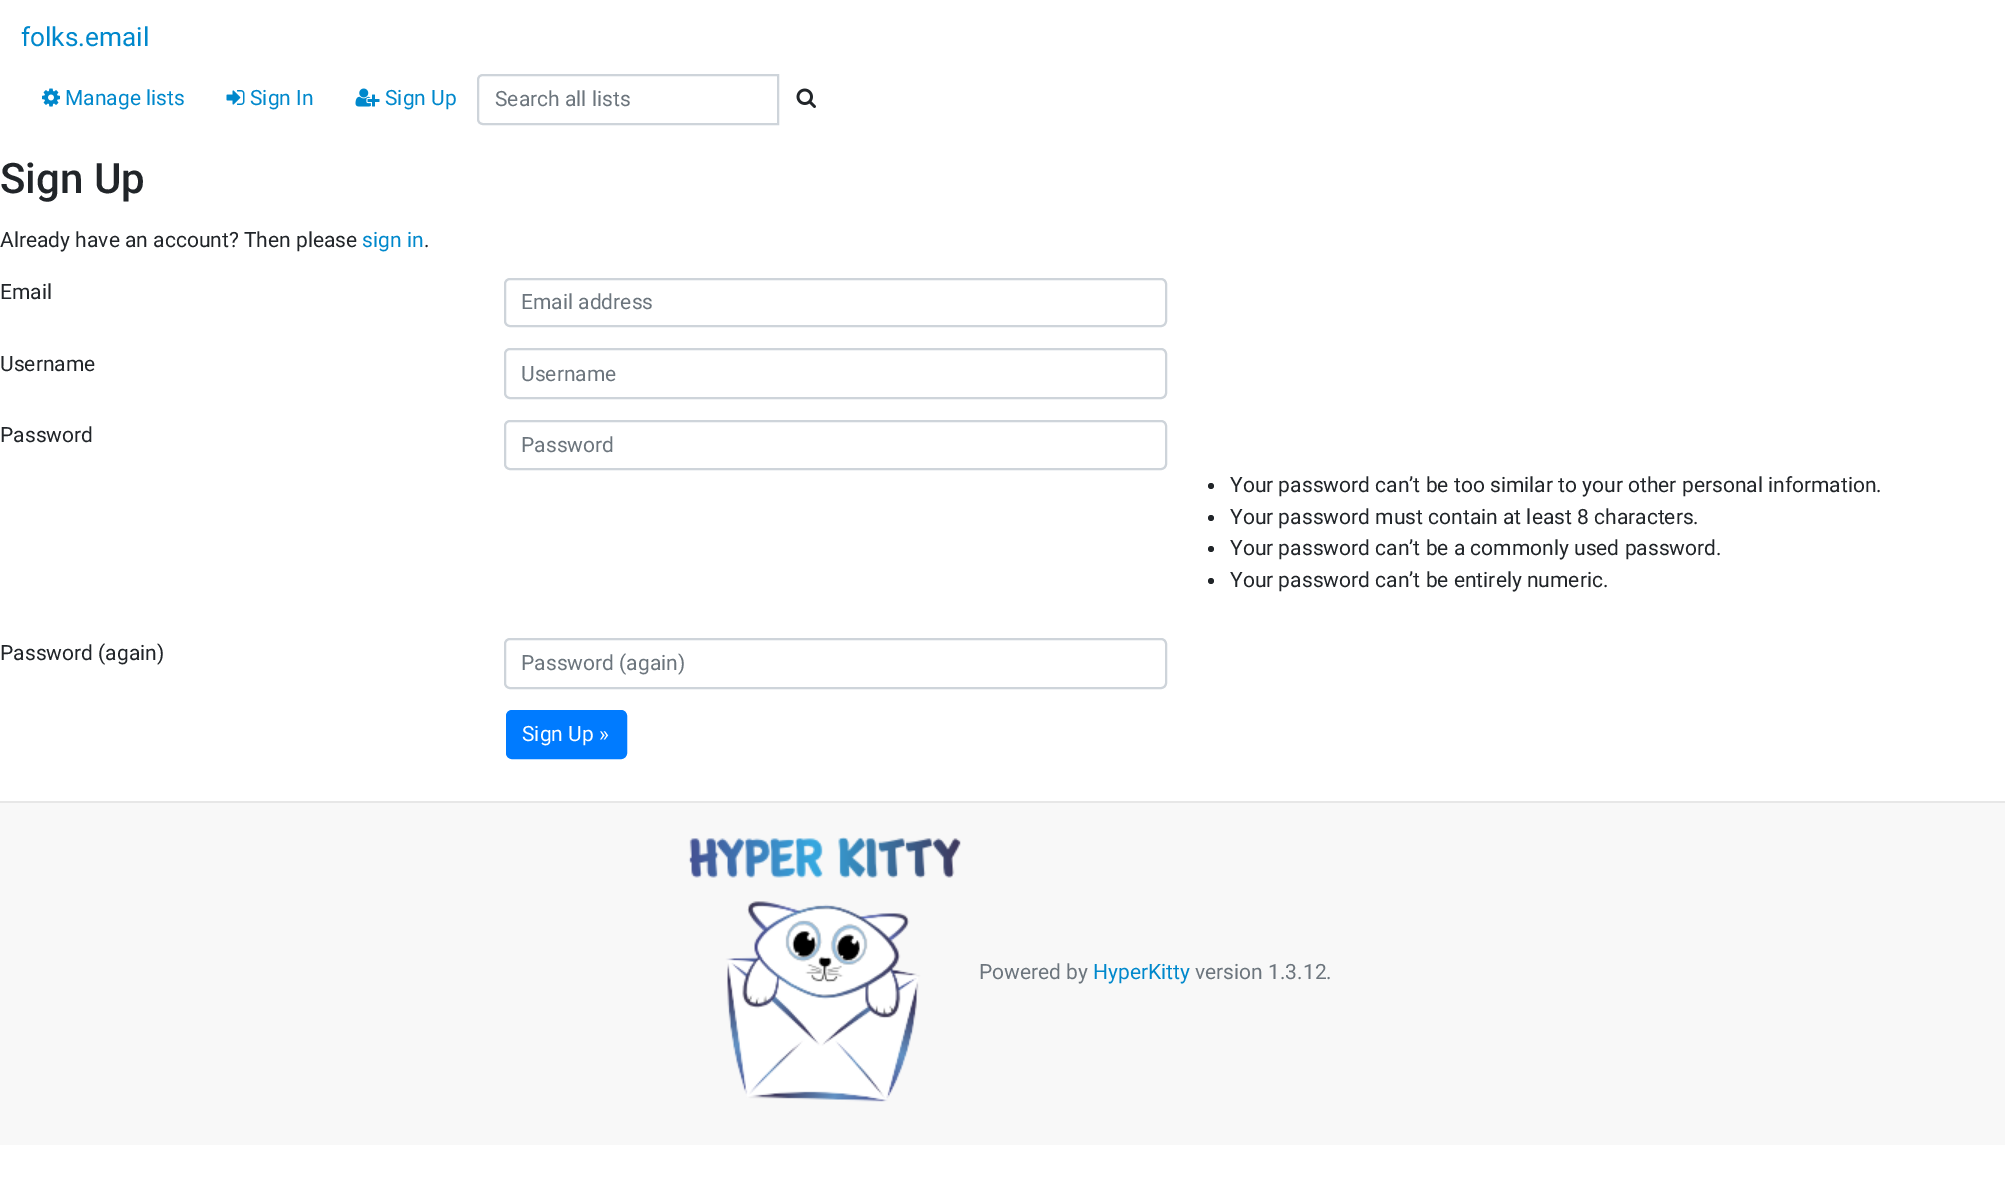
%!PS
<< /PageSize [2005 1186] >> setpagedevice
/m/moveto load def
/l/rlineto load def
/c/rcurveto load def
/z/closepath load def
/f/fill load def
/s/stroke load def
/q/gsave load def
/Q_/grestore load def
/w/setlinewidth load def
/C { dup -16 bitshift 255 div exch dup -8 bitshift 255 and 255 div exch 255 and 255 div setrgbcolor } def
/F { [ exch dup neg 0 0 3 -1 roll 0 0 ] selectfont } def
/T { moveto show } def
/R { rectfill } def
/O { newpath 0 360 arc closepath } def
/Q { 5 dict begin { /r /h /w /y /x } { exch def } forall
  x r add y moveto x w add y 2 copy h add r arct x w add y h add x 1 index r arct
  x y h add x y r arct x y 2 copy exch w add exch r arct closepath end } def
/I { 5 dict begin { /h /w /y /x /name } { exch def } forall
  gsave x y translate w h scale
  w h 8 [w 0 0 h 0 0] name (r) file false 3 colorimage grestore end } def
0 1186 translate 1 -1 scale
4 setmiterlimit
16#FFFFFF C
0 0 2005 1186 R
/Roboto-Regular 26.25 F
16#0088CC C
(folks.email) 21 46 T
(1.rgb) 42 88 18 19 I
/Roboto-Regular 21 F
(Manage lists) 65 105 T
(2.rgb) 226 90 19 15 I
(Sign In) 250 105 T
(3.rgb) 355 88 25 19 I
(Sign Up) 385 105 T
16#CED4DA C
2 w
483 75 m 295 0 l 0 49 l -295 0 l -3 0 -5 -2 -5 -5 c 0 -39 l 0 -3 2 -5 5 -5 c z s
16#6C757D C
(Search all lists) 495 106 T
(4.rgb) 796 88 20 20 I
/Roboto-Medium 42 F
16#212529 C
(Sign Up) 0 193 T
/Roboto-Regular 21 F
(Already have an account? Then please) 0 247 T
16#0088CC C
(sign in) 362 247 T
16#212529 C
(.) 424 247 T
(Email) 0 299 T
16#CED4DA C
505 279 661 47 5 Q s
16#6C757D C
(Email address) 521 309 T
16#212529 C
(Username) 0 371 T
16#CED4DA C
505 349 661 49 5 Q s
16#6C757D C
(Username) 521 381 T
16#212529 C
(Password) 0 442 T
16#CED4DA C
505 421 661 48 5 Q s
16#6C757D C
(Password) 521 452 T
16#212529 C
1211 486 3 O f
(Your password can’t be too similar to your other personal information.) 1230 492 T
1211 518 3 O f
(Your password must contain at least 8 characters.) 1230 524 T
1211 549 3 O f
(Your password can’t be a commonly used password.) 1230 555 T
1211 581 3 O f
(Your password can’t be entirely numeric.) 1230 587 T
(Password \(again\)) 0 660 T
16#CED4DA C
505 639 661 49 5 Q s
16#6C757D C
(Password \(again\)) 521 670 T
16#007BFF C
507 711 119 47 5 Q q f Q_
s
16#FFFFFF C
(Sign Up ») 522 741 T
16#F8F8F8 C
0 803 2005 342 R
16#E7E7E7 C
0 801 2005 2 R
(5.rgb) 688 837 273 265 I
16#6C757D C
(Powered by) 979 979 T
16#0088CC C
(HyperKitty) 1093 979 T
16#6C757D C
(version 1.3.12.) 1195 979 T
showpage
